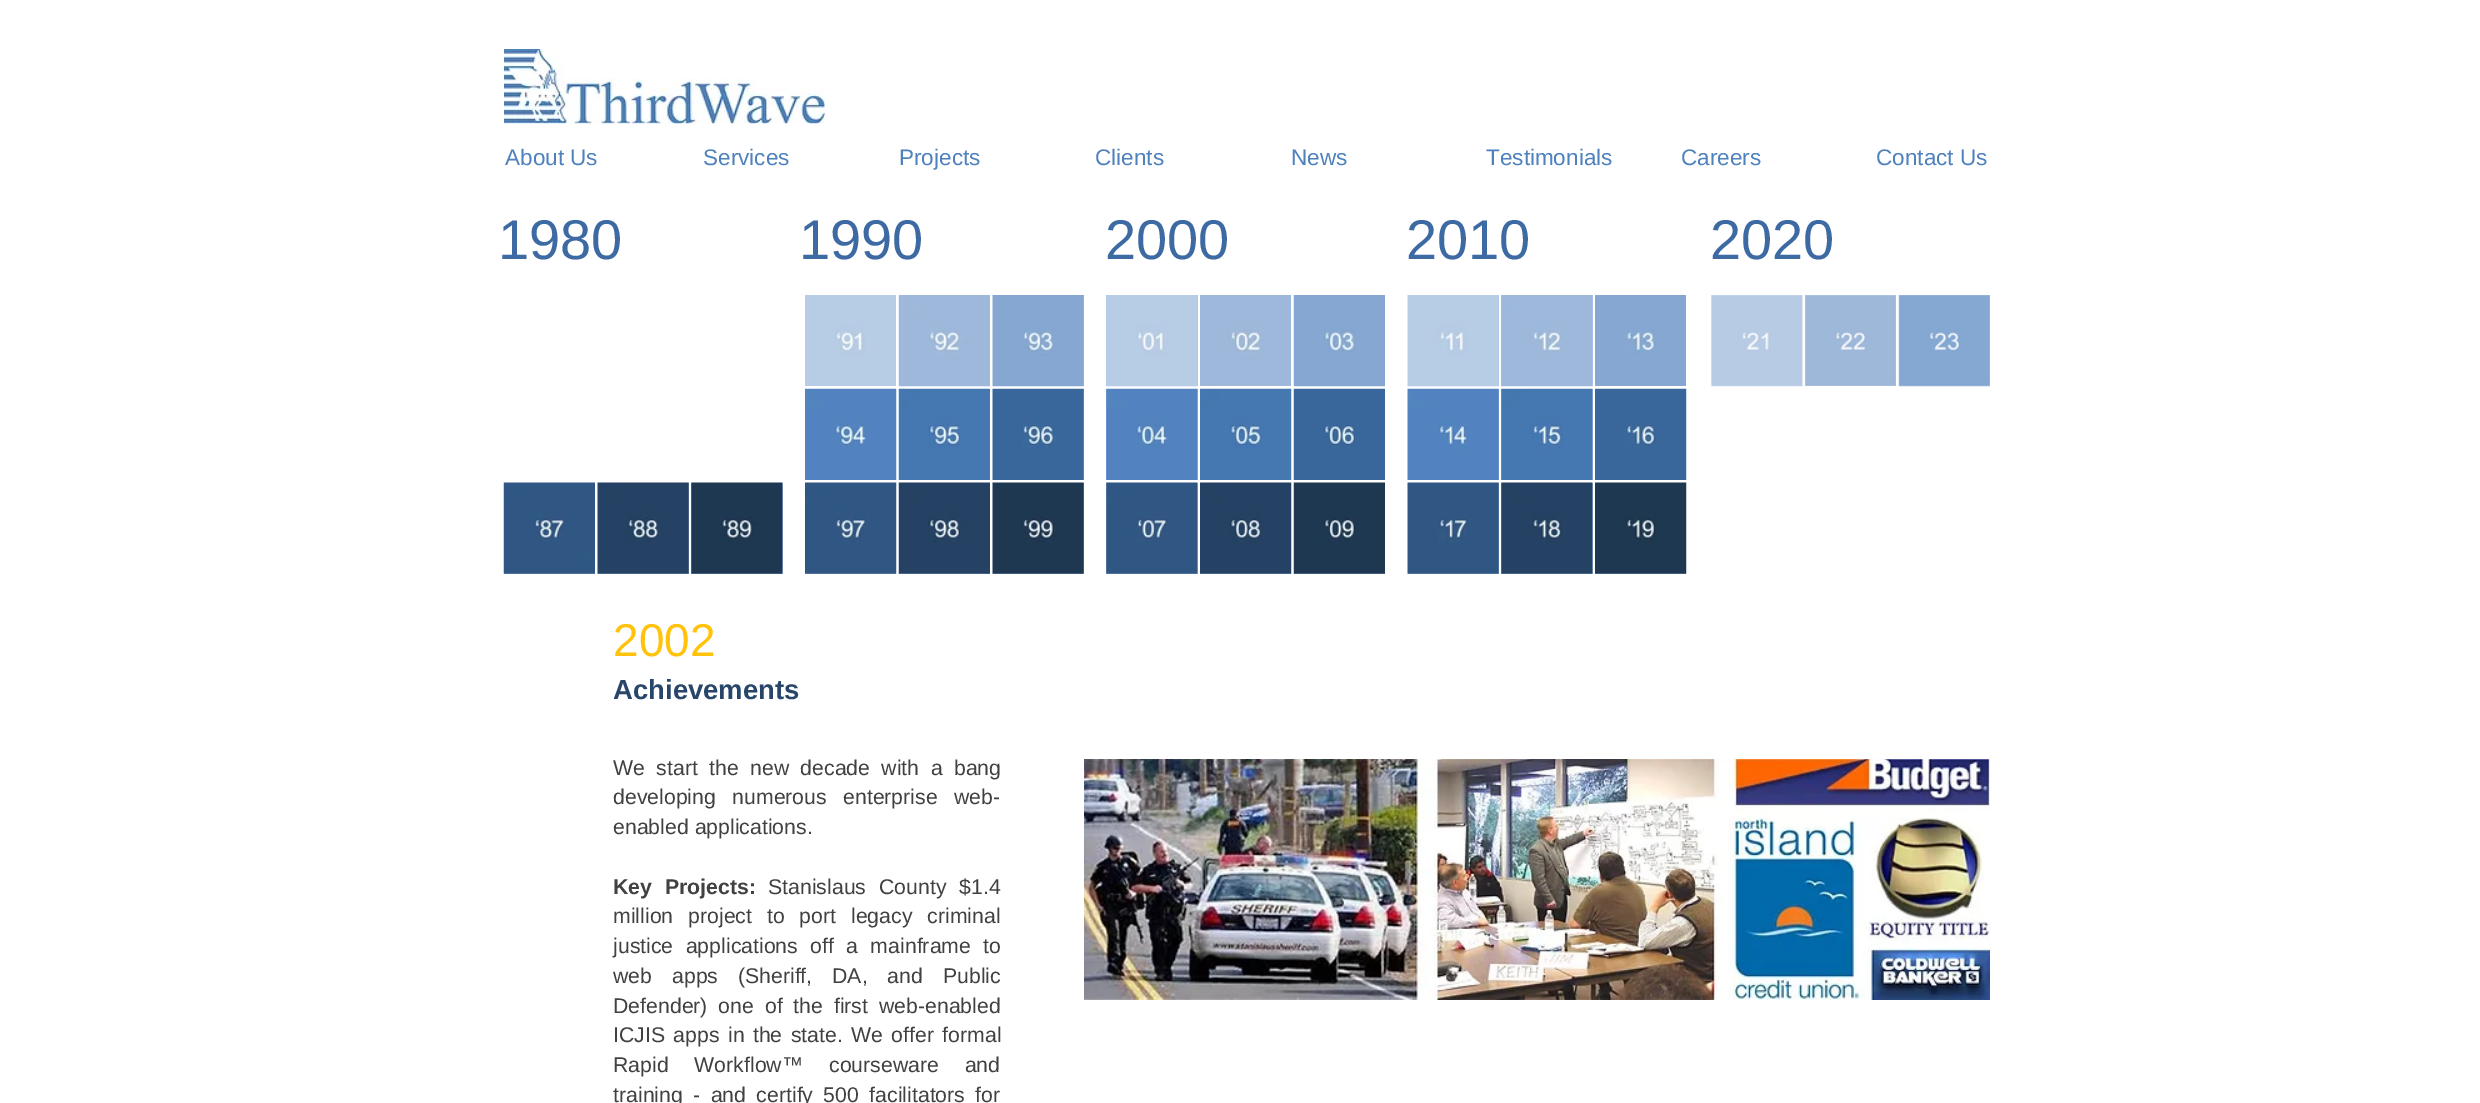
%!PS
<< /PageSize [2480 1103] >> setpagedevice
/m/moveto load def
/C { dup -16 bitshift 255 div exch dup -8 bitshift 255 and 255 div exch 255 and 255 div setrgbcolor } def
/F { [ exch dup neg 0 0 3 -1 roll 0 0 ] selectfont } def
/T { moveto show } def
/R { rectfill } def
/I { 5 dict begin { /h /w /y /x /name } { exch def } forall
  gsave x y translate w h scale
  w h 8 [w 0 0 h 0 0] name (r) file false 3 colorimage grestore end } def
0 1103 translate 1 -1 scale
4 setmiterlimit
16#FFFFFF C
0 0 2480 1103 R
(1.rgb) 504 49 321 75 I
/LiberationSans-Regular 22.5 F
16#4F81BD C
(About Us) 505 165 T
(Services) 703 165 T
(Projects) 899 165 T
(Clients) 1095 165 T
(News) 1291 165 T
(Testimonials) 1486 165 T
(Careers) 1681 165 T
(Contact Us) 1876 165 T
/LiberationSans-Regular 56 F
16#3D6AA3 C
(1980) 498 259 T
(1990) 799 259 T
(2000) 1105 259 T
(2010) 1406 259 T
(2020) 1710 259 T
(2.rgb) 805 295 91 91 I
(3.rgb) 898 295 92 92 I
(4.rgb) 992 295 92 92 I
(5.rgb) 805 388 92 92 I
(6.rgb) 898 388 92 92 I
(7.rgb) 992 388 92 92 I
(8.rgb) 805 482 92 92 I
(9.rgb) 898 482 92 92 I
16#ADC6F8 C
993 483 91 91 R
(10.rgb) 992 482 92 92 I
1106 295 92 91 R
(11.rgb) 1106 295 92 92 I
(12.rgb) 1200 295 91 91 I
(13.rgb) 1293 295 92 92 I
1106 389 92 91 R
(14.rgb) 1106 388 92 92 I
(15.rgb) 1200 388 92 92 I
(16.rgb) 1293 388 92 92 I
1106 483 92 91 R
(17.rgb) 1106 482 92 92 I
(18.rgb) 1200 482 92 92 I
(19.rgb) 1293 482 92 92 I
(20.rgb) 1407 295 92 92 I
1501 295 92 91 R
(21.rgb) 1501 295 92 92 I
(22.rgb) 1595 295 91 91 I
(23.rgb) 1407 388 92 92 I
1501 389 92 91 R
(24.rgb) 1501 388 92 92 I
(25.rgb) 1595 388 92 92 I
1408 483 91 91 R
(26.rgb) 1407 482 92 92 I
1501 483 92 91 R
(27.rgb) 1501 482 92 92 I
(28.rgb) 1595 482 92 92 I
(29.rgb) 1711 295 92 92 I
(30.rgb) 1805 295 91 91 I
(31.rgb) 1898 295 92 92 I
(32.rgb) 503 482 92 92 I
598 483 91 91 R
(33.rgb) 597 482 92 92 I
691 483 92 91 R
(34.rgb) 691 482 92 92 I
/LiberationSans-Regular 46 F
16#FFC30B C
(2002) 613 656 T
/LiberationSans-Bold 27.5 F
16#28466A C
(Achievements) 613 699 T
/LiberationSans-Regular 21.25 F
16#414141 C
613 775 m 5.5 0 32 (We start the new decade with a bang) widthshow
613 804 m 10.5 0 32 (developing numerous enterprise web-) widthshow
(enabled applications.) 613 834 T
/LiberationSans-Bold 21.25 F
613 894 m 7 0 32 (Key Projects:) widthshow
/LiberationSans-Regular 21.25 F
768 894 m 7 0 32 (Stanislaus County $1.4) widthshow
613 923 m 9 0 32 (million project to port legacy criminal) widthshow
613 953 m 6.5 0 32 (justice applications off a mainframe to) widthshow
613 983 m 14 0 32 (web apps \(Sheriff, DA, and Public) widthshow
613 1013 m 5 0 32 (Defender\) one of the first web-enabled) widthshow
613 1042 m 2.5 0 32 (ICJIS apps in the state. We offer formal) widthshow
613 1072 m 20 0 32 (Rapid Workflow™ courseware and) widthshow
613 1102 m 4.5 0 32 (training - and certify 500 facilitators for) widthshow
(35.rgb) 1084 759 906 241 I
showpage
